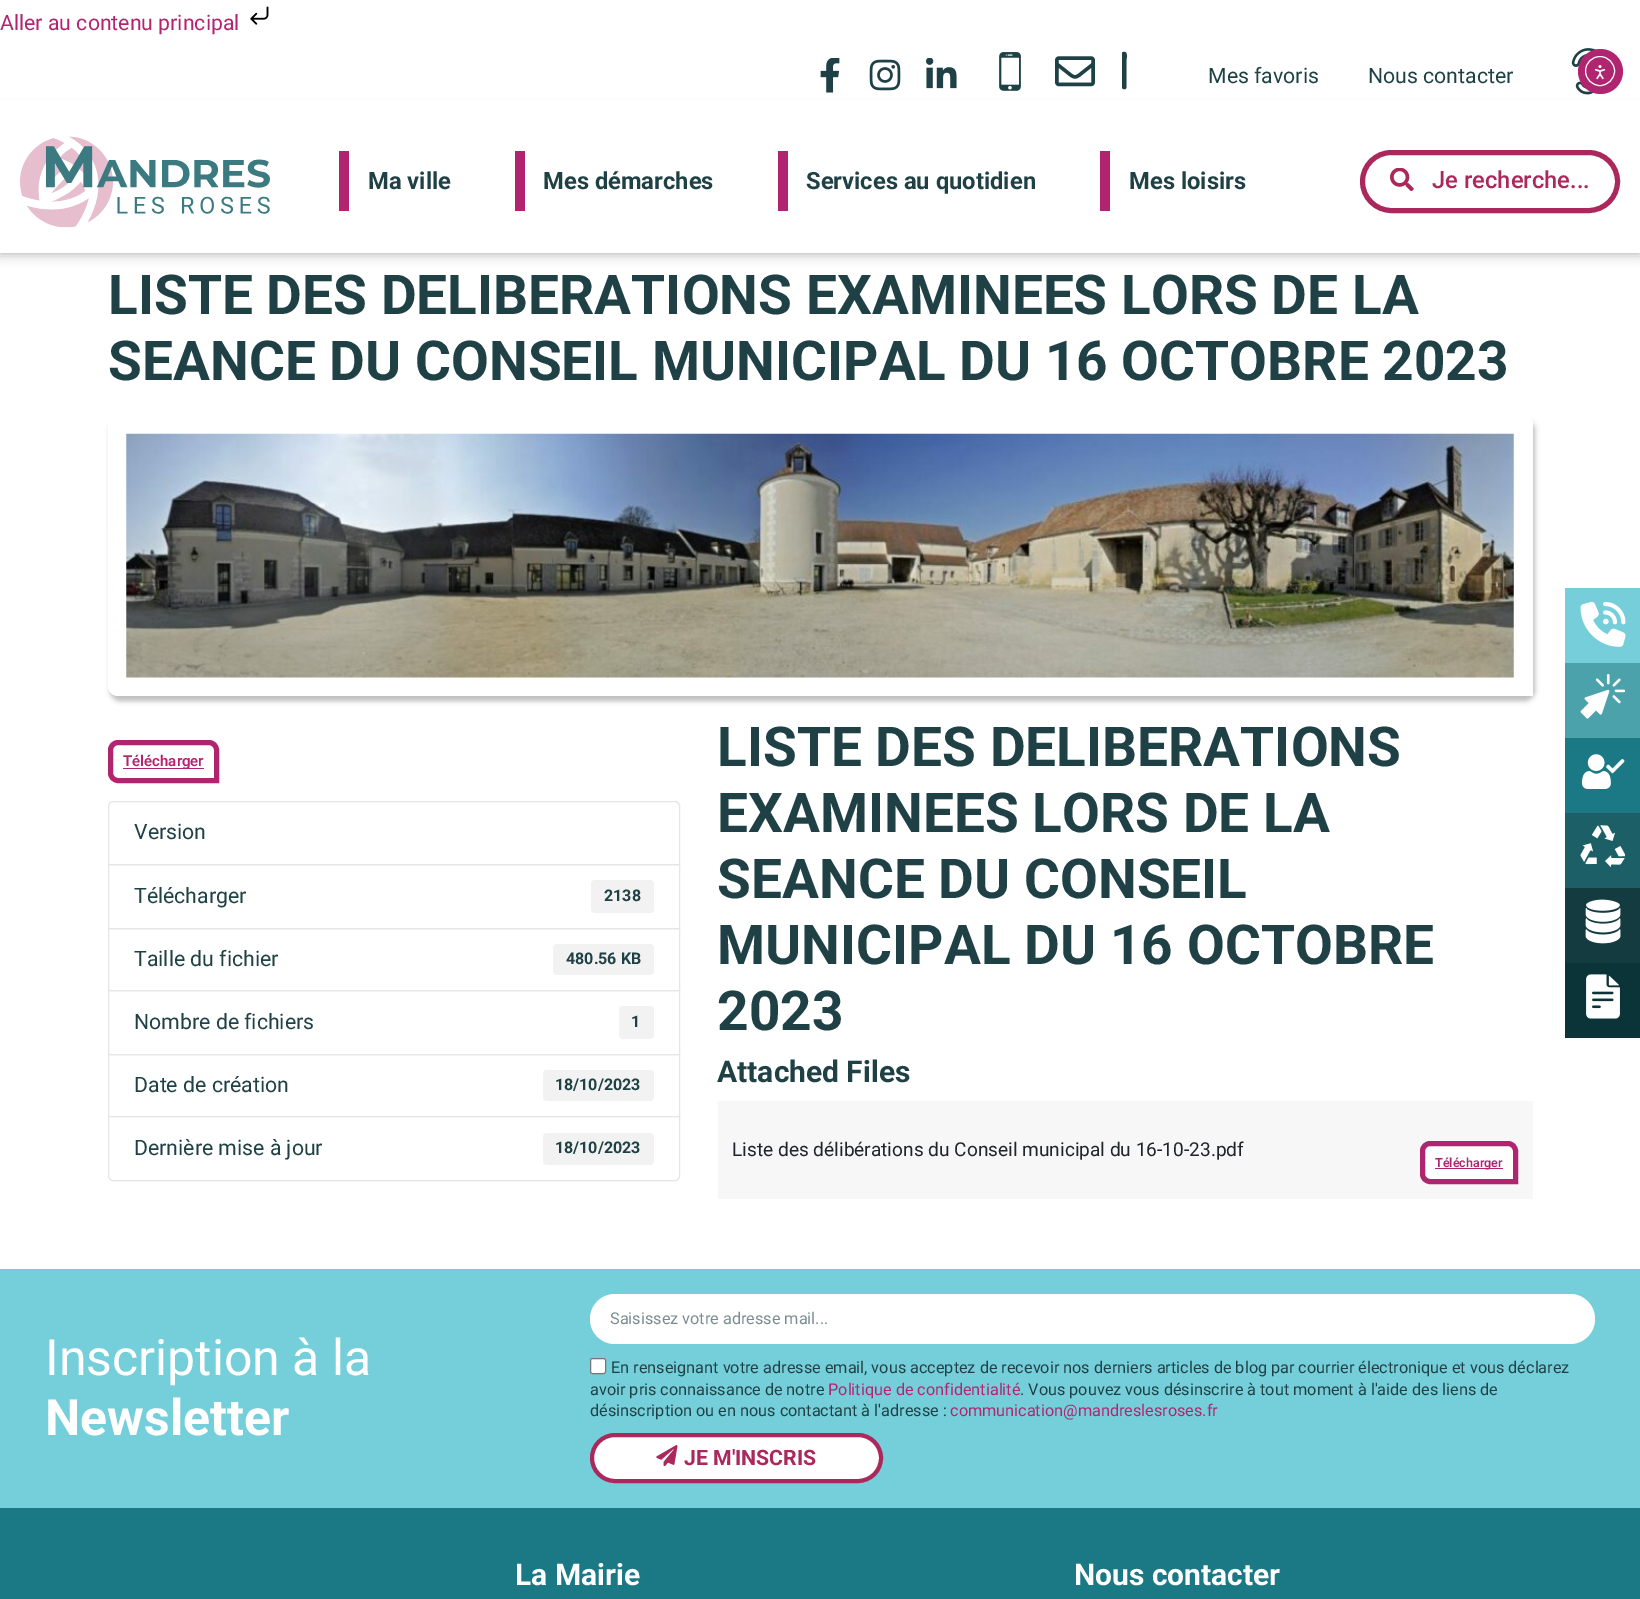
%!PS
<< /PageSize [1640 1599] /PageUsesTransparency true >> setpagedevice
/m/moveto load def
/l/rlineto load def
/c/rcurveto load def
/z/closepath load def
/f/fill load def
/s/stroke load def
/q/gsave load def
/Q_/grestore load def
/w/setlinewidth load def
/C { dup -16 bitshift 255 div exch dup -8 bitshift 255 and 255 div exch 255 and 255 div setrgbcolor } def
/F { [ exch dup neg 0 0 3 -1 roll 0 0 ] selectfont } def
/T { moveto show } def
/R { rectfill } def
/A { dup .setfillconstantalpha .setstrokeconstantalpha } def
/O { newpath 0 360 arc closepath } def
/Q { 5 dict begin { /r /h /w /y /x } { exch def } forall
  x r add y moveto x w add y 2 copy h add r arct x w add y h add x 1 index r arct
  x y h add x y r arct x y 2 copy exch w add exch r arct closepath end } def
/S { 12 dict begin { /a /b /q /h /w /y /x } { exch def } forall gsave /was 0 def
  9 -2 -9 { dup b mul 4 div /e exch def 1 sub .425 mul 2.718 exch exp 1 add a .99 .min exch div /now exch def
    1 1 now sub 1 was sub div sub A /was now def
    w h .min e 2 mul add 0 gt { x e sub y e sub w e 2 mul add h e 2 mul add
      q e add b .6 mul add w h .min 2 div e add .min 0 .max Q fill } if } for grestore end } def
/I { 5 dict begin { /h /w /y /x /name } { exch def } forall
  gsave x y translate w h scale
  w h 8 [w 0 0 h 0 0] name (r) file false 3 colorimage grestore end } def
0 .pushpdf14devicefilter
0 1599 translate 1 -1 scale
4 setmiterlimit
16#FFFFFF C
0 0 1640 1599 R
/Roboto-Regular 21.25 F
16#B32470 C
(Aller au contenu principal) 0 30 T
(1.rgb) 250 6 19 19 I
16#000000 C
0 111 1640 142 0 6 .35 S
(2.rgb) 820 58 20 35 I
(3.rgb) 869 59 32 32 I
(4.rgb) 926 58 31 31 I
(5.rgb) 999 52 22 39 I
(6.rgb) 1055 56 40 31 I
16#1F4145 C
1122 87 m 0 3 4.5 3 4.5 0 c 0 -27.5 l 0 0 1 -5 -.5 -7 c -.5 -.5 l -1.5 0 -2.5 -.5 -3.5 1 c z f
(Mes favoris) 1208 83 T
(Nous contacter) 1368 83 T
(7.rgb) 1571 48 26 47 I
16#FFFFFF C
0 100 1640 153 R
(8.rgb) 20 136 250 92 I
16#B32470 C
339 151 10 60 R
/Roboto-Bold 23.75 F
16#1F4145 C
(Ma ville) 368 189 T
16#B32470 C
515 151 10 60 R
16#1F4145 C
(Mes démarches) 543 189 T
16#B32470 C
778 151 10 60 R
16#1F4145 C
(Services au quotidien) 806 189 T
16#B32470 C
1100 151 10 60 R
16#1F4145 C
(Mes loisirs) 1129 189 T
16#AB285D C
5 w
1362.5 152.5 255 58 29 Q s
(9.rgb) 1390 168 24 23 I
/Roboto-Medium 23.75 F
(Je recherche...) 1432 188 T
16#B0256F C
1600.5 71.5 22.5 O f
16#FFFFFF C
1 w
1600 71 14.5 O s
(10.rgb) 1594 65 12 15 I
/Roboto-Bold 55 F
16#1F4145 C
(LISTE DES DELIBERATIONS EXAMINEES LORS DE LA) 108 314 T
(SEANCE DU CONSEIL MUNICIPAL DU 16 OCTOBRE 2023) 108 380 T
16#000000 C
110 420 1425 281 10 2.5 .25 S
16#FFFFFF C
118 415 m 1405 0 l 5.5 0 10 4.5 10 10 c 0 271 l -1415 0 l -5.5 0 -10 -4.5 -10 -10 c 0 -261 l 0 -5.5 4.5 -10 10 -10 c z f
(11.rgb) 126 433 1388 245 I
16#B0256F C
5 w
118 742.5 m 91 0 l 4 0 7.5 3.5 7.5 7.5 c 0 30.5 l -98.5 0 l -4 0 -7.5 -3.5 -7.5 -7.5 c 0 -23 l 0 -4 3.5 -7.5 7.5 -7.5 c z s
123 768 81 1 R
/Roboto-SemiBold 15 F
16#B32470 C
(Télécharger) 123 766 T
16#E5E5E5 C
1 w
113 801.5 m 562 0 l 2.5 0 4.5 2 4.5 4.5 c 0 58.5 l -571 0 l 0 -58.5 l 0 -2.5 2 -4.5 4.5 -4.5 c z s
/Roboto-Regular 21.25 F
16#1F4145 C
(Version) 134 839 T
16#E5E5E5 C
108.5 864.5 571 64 rectstroke
16#1F4145 C
(Télécharger) 134 903 T
16#F2F2F2 C
591 880 63 33 4 Q f
/Roboto-Bold 16 F
16#1F4145 C
(2138) 604 901 T
16#E5E5E5 C
108.5 928.5 571 62 rectstroke
/Roboto-Regular 21.25 F
16#1F4145 C
(Taille du fichier) 134 966 T
16#F2F2F2 C
553 944 101 31 4 Q f
/Roboto-Bold 16 F
16#1F4145 C
(480.56 KB) 566 964 T
16#E5E5E5 C
108.5 990.5 571 64 rectstroke
/Roboto-Regular 21.25 F
16#1F4145 C
(Nombre de fichiers) 134 1029 T
16#F2F2F2 C
619 1006 35 33 4 Q f
/Roboto-Bold 16 F
16#1F4145 C
(1) 631 1027 T
16#E5E5E5 C
108.5 1054.5 571 63 rectstroke
/Roboto-Regular 21.25 F
16#1F4145 C
(Date de création) 134 1092 T
16#F2F2F2 C
543 1070 111 31 4 Q f
/Roboto-Bold 16 F
16#1F4145 C
(18/10/2023) 555 1090 T
16#FFFFFF C
108.5 1116.5 m 571 0 l 0 59.5 l 0 2.5 -2 4.5 -4.5 4.5 c -562 0 l -2.5 0 -4.5 -2 -4.5 -4.5 c z q f Q_
16#E5E5E5 C
s
/Roboto-Regular 21.25 F
16#1F4145 C
(Dernière mise à jour) 134 1155 T
16#F2F2F2 C
543 1133 111 32 4 Q f
/Roboto-Bold 16 F
16#1F4145 C
(18/10/2023) 555 1153 T
/Roboto-Bold 55 F
(LISTE DES DELIBERATIONS) 717 766 T
(EXAMINEES LORS DE LA) 717 832 T
(SEANCE DU CONSEIL) 717 898 T
(MUNICIPAL DU 16 OCTOBRE) 717 964 T
(2023) 717 1030 T
/Roboto-Bold 30 F
(Attached Files) 717 1082 T
16#F7F7F7 C
718 1101 815 98 R
/Roboto-Regular 19.1 F
16#212529 C
(Liste des délibérations du Conseil municipal du 16-10-23.pdf) 732 1156 T
16#FFFFFF C
1430 1143.5 m 78 0 l 4 0 7.5 3.5 7.5 7.5 c 0 30.5 l -85.5 0 l -4 0 -7.5 -3.5 -7.5 -7.5 c 0 -23 l 0 -4 3.5 -7.5 7.5 -7.5 c z q f Q_
16#B0256F C
5 w
s
1435 1168 68 1 R
/Roboto-SemiBold 12.5 F
16#B32470 C
(Télécharger) 1435 1167 T
16#76CEDB C
1565 588 75 75 R
(12.rgb) 1580 601 46 46 I
16#4CA2AB C
1565 663 75 75 R
(13.rgb) 1580 674 45 45 I
16#1A7985 C
1565 738 75 75 R
(14.rgb) 1582 754 43 35 I
16#1D5F67 C
1565 813 75 75 R
(15.rgb) 1580 825 45 43 I
16#143B3F C
1565 888 75 75 R
(16.rgb) 1585 899 36 45 I
16#0B3438 C
1565 963 75 75 R
(17.rgb) 1586 974 34 45 I
16#74CFDA C
0 1269 1640 239 R
/Roboto-Regular 50 F
16#FFFFFF C
(Inscription à la) 45 1375 T
/Roboto-Bold 50 F
(Newsletter) 45 1435 T
590 1294 1005 50 25 Q f
/Roboto-Regular 16.25 F
16#798D8F C
(Saisissez votre adresse mail...) 610 1324 T
16#FFFFFF C
590.5 1358.5 15 15 2 Q q f Q_
16#767676 C
1 w
s
16#1F4145 C
(En renseignant votre adresse email, vous acceptez de recevoir nos derniers articles de blog par courrier électronique et vous déclarez) 611 1373 T
(avoir pris connaissance de notre) 590 1395 T
16#B32470 C
(Politique de confidentialité) 828 1395 T
16#1F4145 C
(. Vous pouvez vous désinscrire à tout moment à l'aide des liens de) 1020 1395 T
(désinscription ou en nous contactant à l'adresse :) 590 1416 T
16#B32470 C
(communication@mandreslesroses.fr) 950 1416 T
16#FFFFFF C
592 1435 289 46 23 Q q f Q_
16#AB285D C
4 w
s
(18.rgb) 656 1445 22 21 I
/Roboto-Bold 21.25 F
(JE M'INSCRIS) 684 1465 T
16#1A7984 C
0 1508 1640 91 R
/Roboto-Bold 30 F
16#FFFFFF C
(La Mairie) 515 1585 T
(Nous contacter) 1074 1585 T
.poppdf14devicefilter showpage
